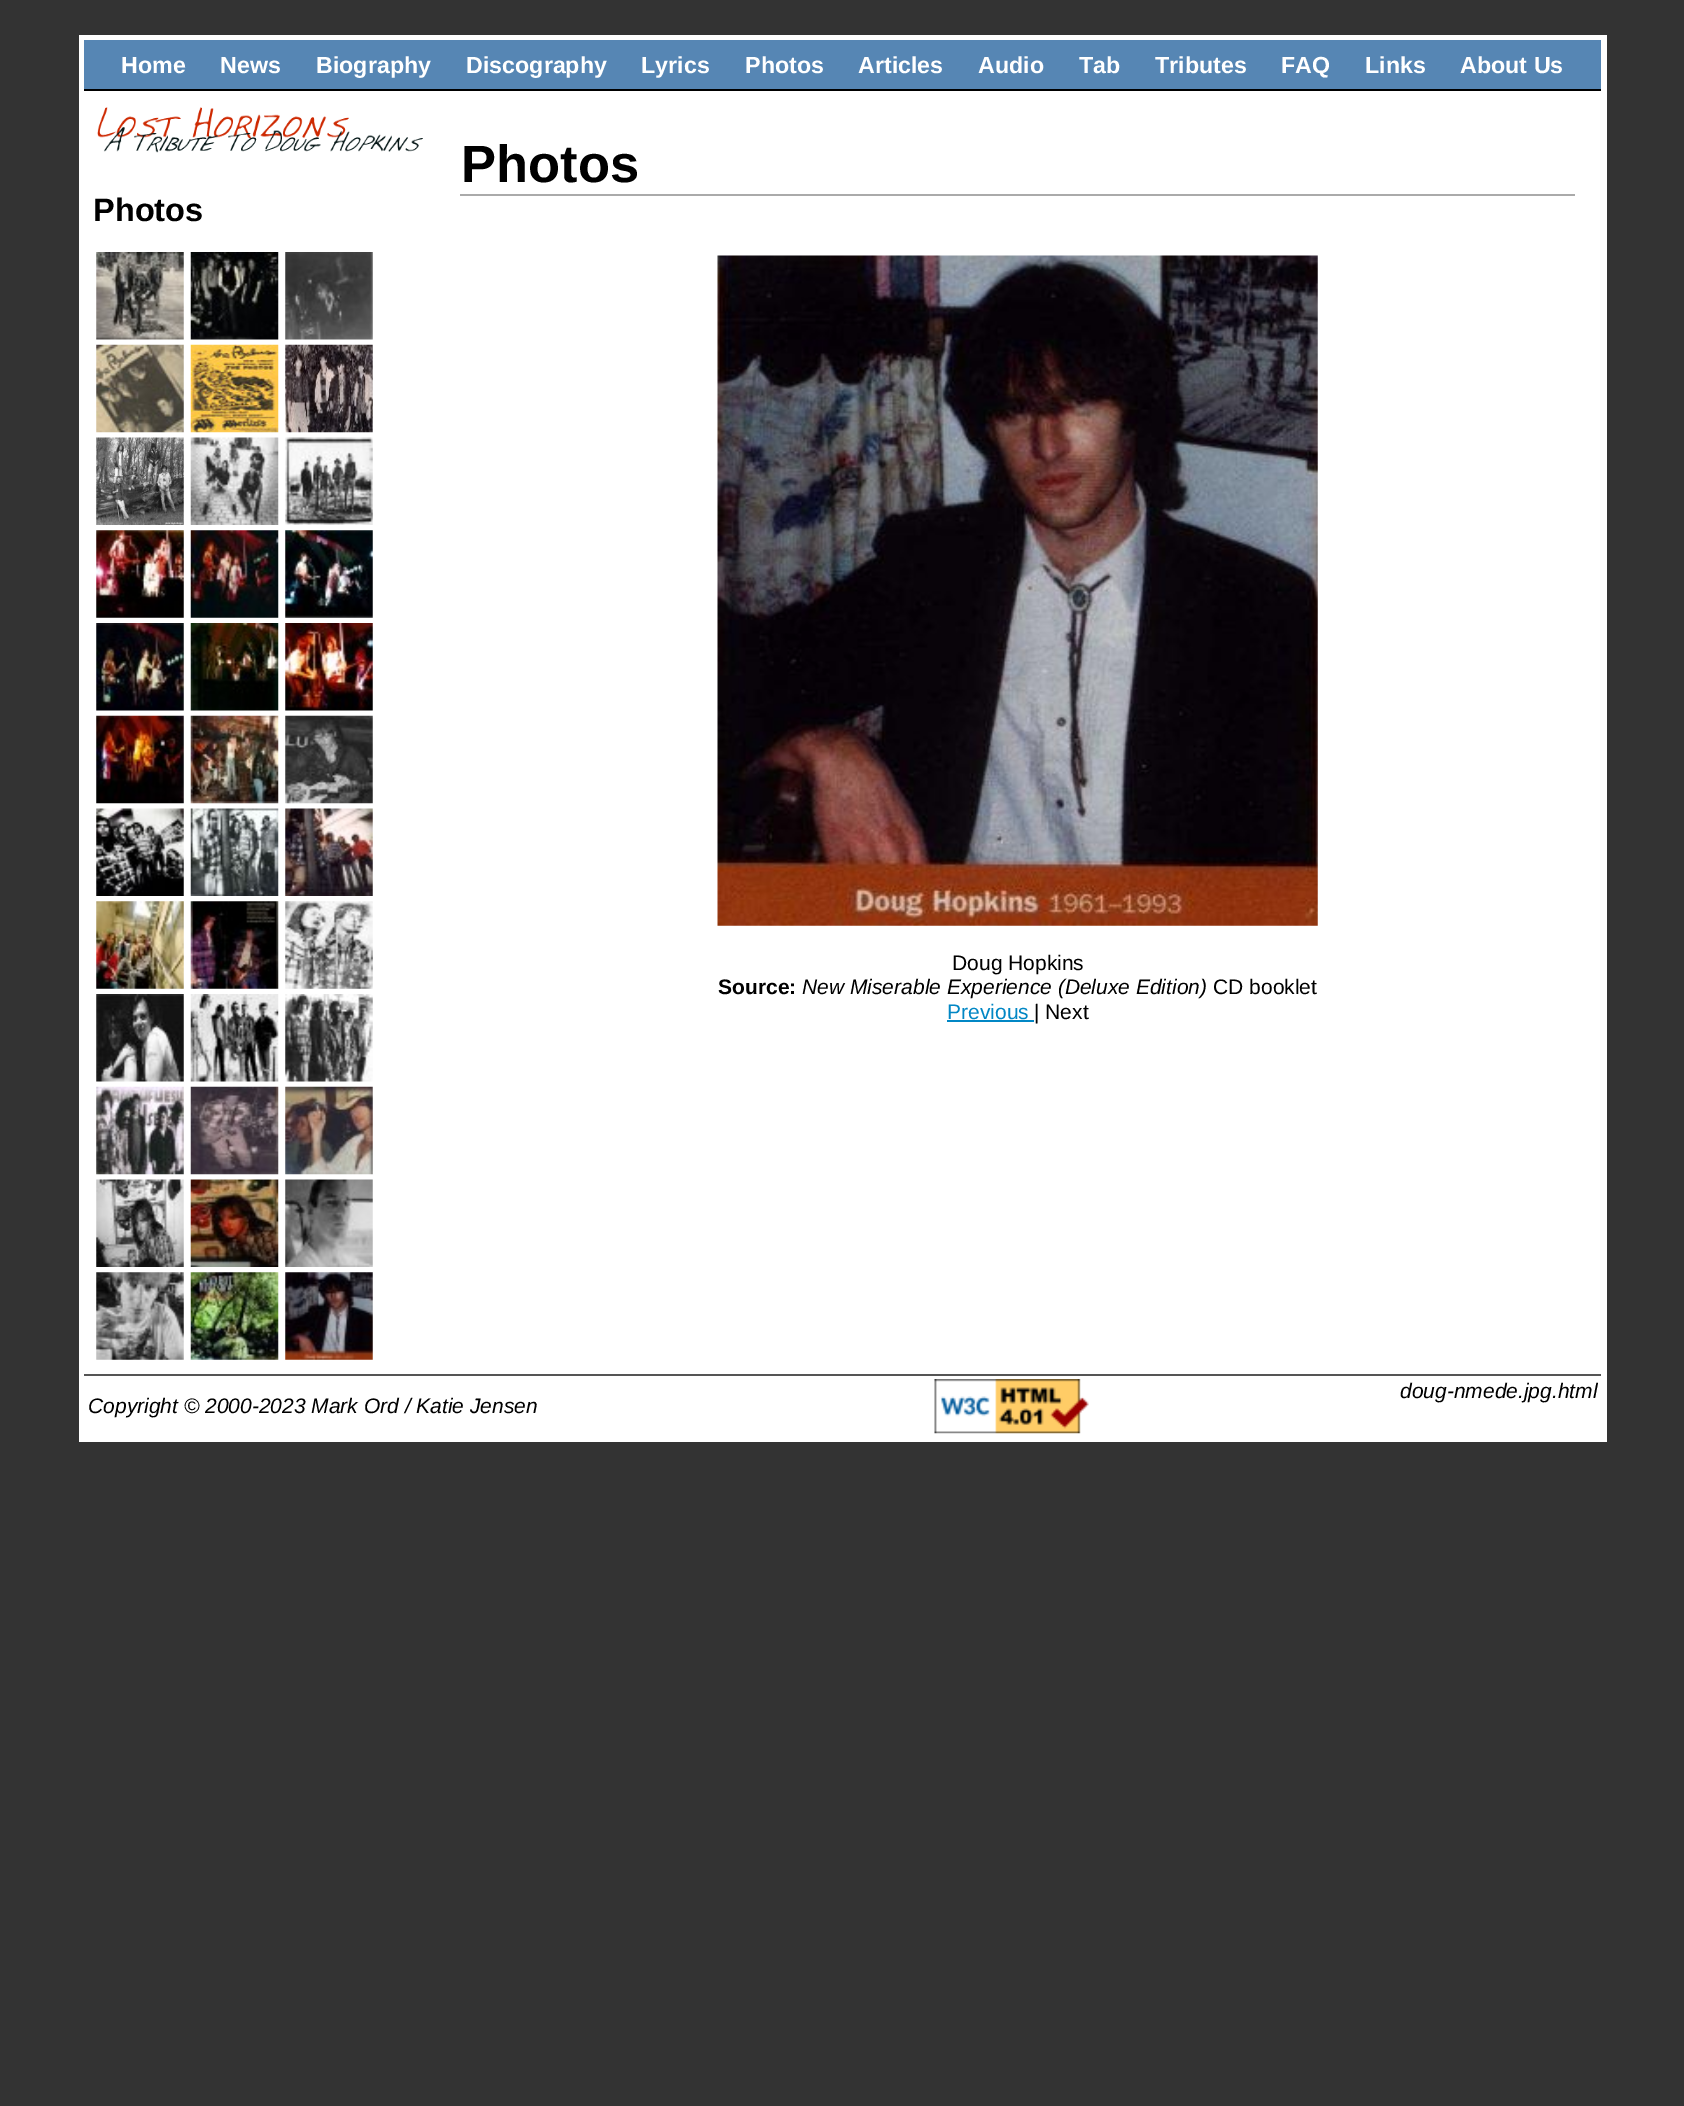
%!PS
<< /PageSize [1684 2106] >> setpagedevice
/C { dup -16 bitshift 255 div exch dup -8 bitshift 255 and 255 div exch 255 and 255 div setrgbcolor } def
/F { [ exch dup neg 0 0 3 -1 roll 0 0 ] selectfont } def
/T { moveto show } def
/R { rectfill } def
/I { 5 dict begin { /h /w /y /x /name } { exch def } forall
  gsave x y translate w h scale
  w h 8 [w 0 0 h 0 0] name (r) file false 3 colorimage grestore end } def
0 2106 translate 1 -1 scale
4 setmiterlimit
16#333333 C
0 0 1684 2106 R
16#FFFFFF C
79 35 1528 1407 R
16#5686B4 C
84 40 1517 49 R
16#000000 C
84 89 1517 2 R
/LiberationSans-Bold 23.25 F
16#FFFFFF C
(Home) 121 73 T
(News) 220 73 T
(Biography) 316 73 T
(Discography) 466 73 T
(Lyrics) 641 73 T
(Photos) 745 73 T
(Articles) 858 73 T
(Audio) 978 73 T
(Tab) 1079 73 T
(Tributes) 1155 73 T
(FAQ) 1281 73 T
(Links) 1365 73 T
(About Us) 1460 73 T
(1.rgb) 97 107 326 46 I
/LiberationSans-Bold 32.5 F
16#000000 C
(Photos) 93 221 T
(2.rgb) 96 252 88 88 I
(3.rgb) 190 252 89 88 I
(4.rgb) 285 252 88 88 I
(5.rgb) 96 344 88 89 I
(6.rgb) 190 344 89 89 I
(7.rgb) 285 344 88 89 I
(8.rgb) 96 437 88 88 I
(9.rgb) 190 437 89 88 I
(10.rgb) 285 437 88 88 I
(11.rgb) 96 530 88 88 I
(12.rgb) 190 530 89 88 I
(13.rgb) 285 530 88 88 I
(14.rgb) 96 623 88 88 I
(15.rgb) 190 623 89 88 I
(16.rgb) 285 623 88 88 I
(17.rgb) 96 715 88 89 I
(18.rgb) 190 715 89 89 I
(19.rgb) 285 715 88 89 I
(20.rgb) 96 808 88 88 I
(21.rgb) 190 808 89 88 I
(22.rgb) 285 808 88 88 I
(23.rgb) 96 901 88 88 I
(24.rgb) 190 901 89 88 I
(25.rgb) 285 901 88 88 I
(26.rgb) 96 994 88 88 I
(27.rgb) 190 994 89 88 I
(28.rgb) 285 994 88 88 I
(29.rgb) 96 1086 88 89 I
(30.rgb) 190 1086 89 89 I
(31.rgb) 285 1086 88 89 I
(32.rgb) 96 1179 88 88 I
(33.rgb) 190 1179 89 88 I
(34.rgb) 285 1179 88 88 I
(35.rgb) 96 1272 88 88 I
(36.rgb) 190 1272 89 88 I
(37.rgb) 285 1272 88 88 I
16#AAAAAA C
460 194 1115 2 R
/LiberationSans-Bold 52.5 F
16#000000 C
(Photos) 461 182 T
(38.rgb) 717 255 601 671 I
/LiberationSans-Regular 21 F
(Doug Hopkins) 952 970 T
/LiberationSans-Bold 21 F
(Source:) 718 994 T
/LiberationSans-Italic 21 F
(New Miserable Experience \(Deluxe Edition\)) 802 994 T
/LiberationSans-Regular 21 F
(CD booklet) 1213 994 T
16#0187C5 C
(Previous) 947 1019 T
947 1020 87 2 R
16#000000 C
(| Next) 1034 1019 T
16#555555 C
84 1374 1517 2 R
(39.rgb) 934 1379 155 55 I
/LiberationSans-Italic 21 F
16#000000 C
(doug-nmede.jpg.html) 1400 1398 T
(Copyright © 2000-2023 Mark Ord / Katie Jensen) 88 1413 T
showpage
